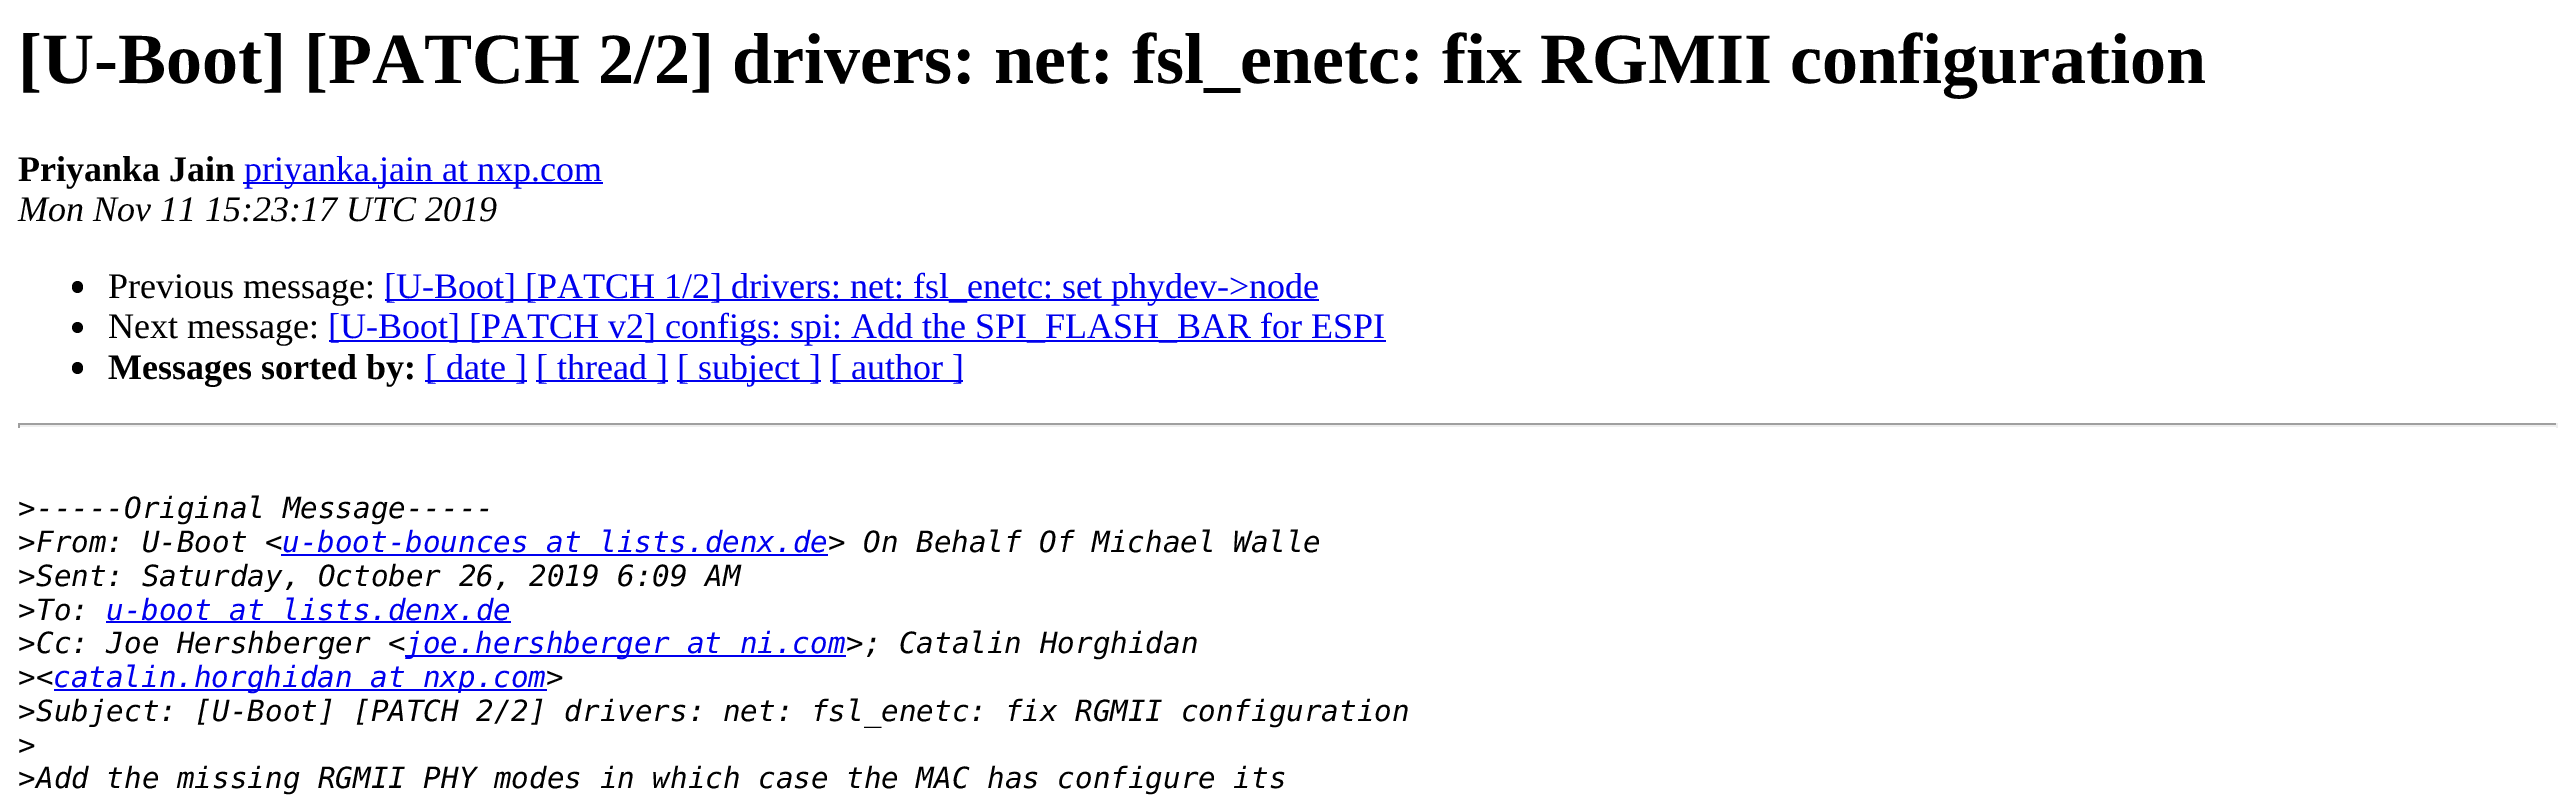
%!PS
<< /PageSize [2576 808] >> setpagedevice
/f/fill load def
/C { dup -16 bitshift 255 div exch dup -8 bitshift 255 and 255 div exch 255 and 255 div setrgbcolor } def
/F { [ exch dup neg 0 0 3 -1 roll 0 0 ] selectfont } def
/T { moveto show } def
/R { rectfill } def
/O { newpath 0 360 arc closepath } def
/Q { 5 dict begin { /r /h /w /y /x } { exch def } forall
  x r add y moveto x w add y 2 copy h add r arct x w add y h add x 1 index r arct
  x y h add x y r arct x y 2 copy exch w add exch r arct closepath end } def
0 808 translate 1 -1 scale
4 setmiterlimit
16#FFFFFF C
0 0 2576 808 R
/LiberationSerif-Bold 72 F
16#000000 C
([U-Boot] [PATCH 2/2] drivers: net: fsl_enetc: fix RGMII configuration) 18 83 T
/LiberationSerif-Bold 36 F
(Priyanka Jain) 18 181 T
16#0000EE C
243 182 360 2 R
/LiberationSerif-Regular 36 F
(priyanka.jain at nxp.com) 244 181 T
/LiberationSerif-Italic 36 F
16#000000 C
(Mon Nov 11 15:23:17 UTC 2019) 18 221 T
72 281 11 12 5.5 Q f
/LiberationSerif-Regular 36 F
(Previous message:) 108 298 T
16#0000EE C
385 299 934 2 R
([U-Boot] [PATCH 1/2] drivers: net: fsl_enetc: set phydev->node) 384 298 T
16#000000 C
77.5 327.5 5.5 O f
(Next message:) 108 338 T
16#0000EE C
329 340 1057 2 R
([U-Boot] [PATCH v2] configs: spi: Add the SPI_FLASH_BAR for ESPI) 328 338 T
16#000000 C
72 362 11 12 5.5 Q f
/LiberationSerif-Bold 36 F
(Messages sorted by:) 108 379 T
16#0000EE C
425 380 102 2 R
/LiberationSerif-Regular 36 F
([ date ]) 425 379 T
536 380 132 2 R
([ thread ]) 536 379 T
677 380 144 2 R
([ subject ]) 677 379 T
830 380 133 2 R
([ author ]) 830 379 T
16#9F9F9F C
18 423 2540 2 R
16#EEEEEE C
2556 423 2 5 R
18 425 2540 2 R
16#9F9F9F C
18 423 2 5 R
/DejaVuSansMono-Regular 29.25 F
16#000000 C
(>) 18 518 T
/DejaVuSansMono-Italic 29.25 F
(-----Original Message-----) 36 518 T
/DejaVuSansMono-Regular 29.25 F
(>) 18 552 T
/DejaVuSansMono-Italic 29.25 F
(From: U-Boot <) 36 552 T
16#0000EE C
281 554 547 2 R
(u-boot-bounces at lists.denx.de) 282 552 T
16#000000 C
(> On Behalf Of Michael Walle) 828 552 T
/DejaVuSansMono-Regular 29.25 F
(>) 18 586 T
/DejaVuSansMono-Italic 29.25 F
(Sent: Saturday, October 26, 2019 6:09 AM) 36 586 T
/DejaVuSansMono-Regular 29.25 F
(>) 18 620 T
/DejaVuSansMono-Italic 29.25 F
(To:) 36 620 T
16#0000EE C
(u-boot at lists.denx.de) 106 620 T
106 621 405 2 R
/DejaVuSansMono-Regular 29.25 F
16#000000 C
(>) 18 653 T
/DejaVuSansMono-Italic 29.25 F
(Cc: Joe Hershberger <) 36 653 T
16#0000EE C
405 655 441 2 R
(joe.hershberger at ni.com) 405 653 T
16#000000 C
(>; Catalin Horghidan) 846 653 T
/DejaVuSansMono-Regular 29.25 F
(>) 18 687 T
/DejaVuSansMono-Italic 29.25 F
(<) 36 687 T
16#0000EE C
54 689 493 2 R
(catalin.horghidan at nxp.com) 53 687 T
16#000000 C
(>) 546 687 T
/DejaVuSansMono-Regular 29.25 F
(>) 18 721 T
/DejaVuSansMono-Italic 29.25 F
(Subject: [U-Boot] [PATCH 2/2] drivers: net: fsl_enetc: fix RGMII configuration) 36 721 T
/DejaVuSansMono-Regular 29.25 F
(>) 18 755 T
(>) 18 788 T
/DejaVuSansMono-Italic 29.25 F
(Add the missing RGMII PHY modes in which case the MAC has configure its) 36 788 T
showpage
